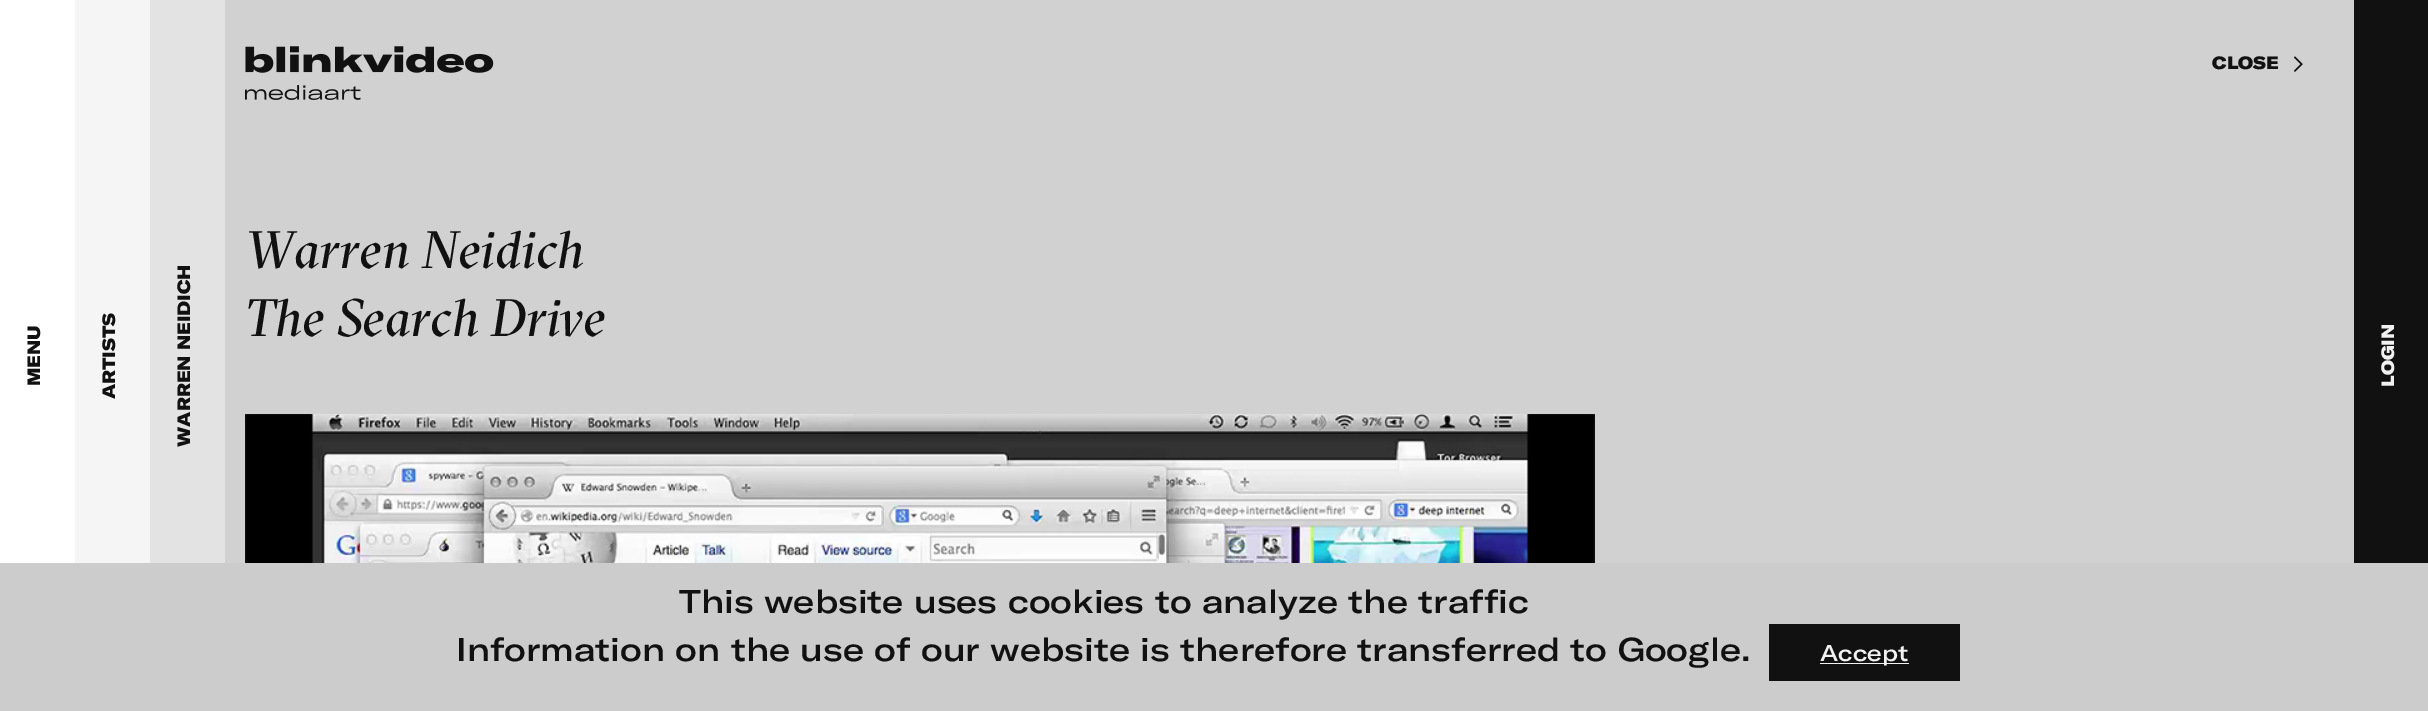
%!PS
<< /PageSize [2428 711] >> setpagedevice
/m/moveto load def
/q/gsave load def
/Q_/grestore load def
/C { dup -16 bitshift 255 div exch dup -8 bitshift 255 and 255 div exch 255 and 255 div setrgbcolor } def
/F { [ exch dup neg 0 0 3 -1 roll 0 0 ] selectfont } def
/T { moveto show } def
/R { rectfill } def
/I { 5 dict begin { /h /w /y /x /name } { exch def } forall
  gsave x y translate w h scale
  w h 8 [w 0 0 h 0 0] name (r) file false 3 colorimage grestore end } def
0 711 translate 1 -1 scale
4 setmiterlimit
16#FFFFFF C
0 0 2428 711 R
16#D1D1D1 C
225 0 2129 563 R
/GTAmerica-Black 17.5 F
16#111111 C
(CLOSE) 2212 69 T
(1.rgb) 2294 56 9 16 I
(2.rgb) 245 46 249 54 I
/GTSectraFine-Italic 52.5 F
(Warren Neidich) 245 268 T
(The Search Drive) 245 336 T
(3.rgb) 245 414 1350 149 I
/GTAmerica-Black 17.5 F
q 40 386 translate -90 rotate 0 0 m (MENU) show Q_
16#F5F5F5 C
75 0 75 563 R
16#111111 C
q 115 399 translate -90 rotate 0 0 m (ARTISTS) show Q_
16#E3E3E3 C
150 0 75 563 R
16#111111 C
q 190 447 translate -90 rotate 0 0 m (WARREN NEIDICH) show Q_
2354 0 74 563 R
16#F1F1F1 C
q 2394 387 translate -90 rotate 0 0 m (LOGIN) show Q_
16#CCCCCC C
0 563 2428 148 R
/GTAmerica-Medium 32.5 F
16#111111 C
(This website uses cookies to analyze the traffic) 679 613 T
(Information on the use of our website is therefore transferred to Google.) 456 661 T
1769 624 191 57 R
16#F1F1F1 C
1820 663 89 1 R
/GTAmerica-Medium 22.5 F
(Accept) 1820 661 T
showpage
